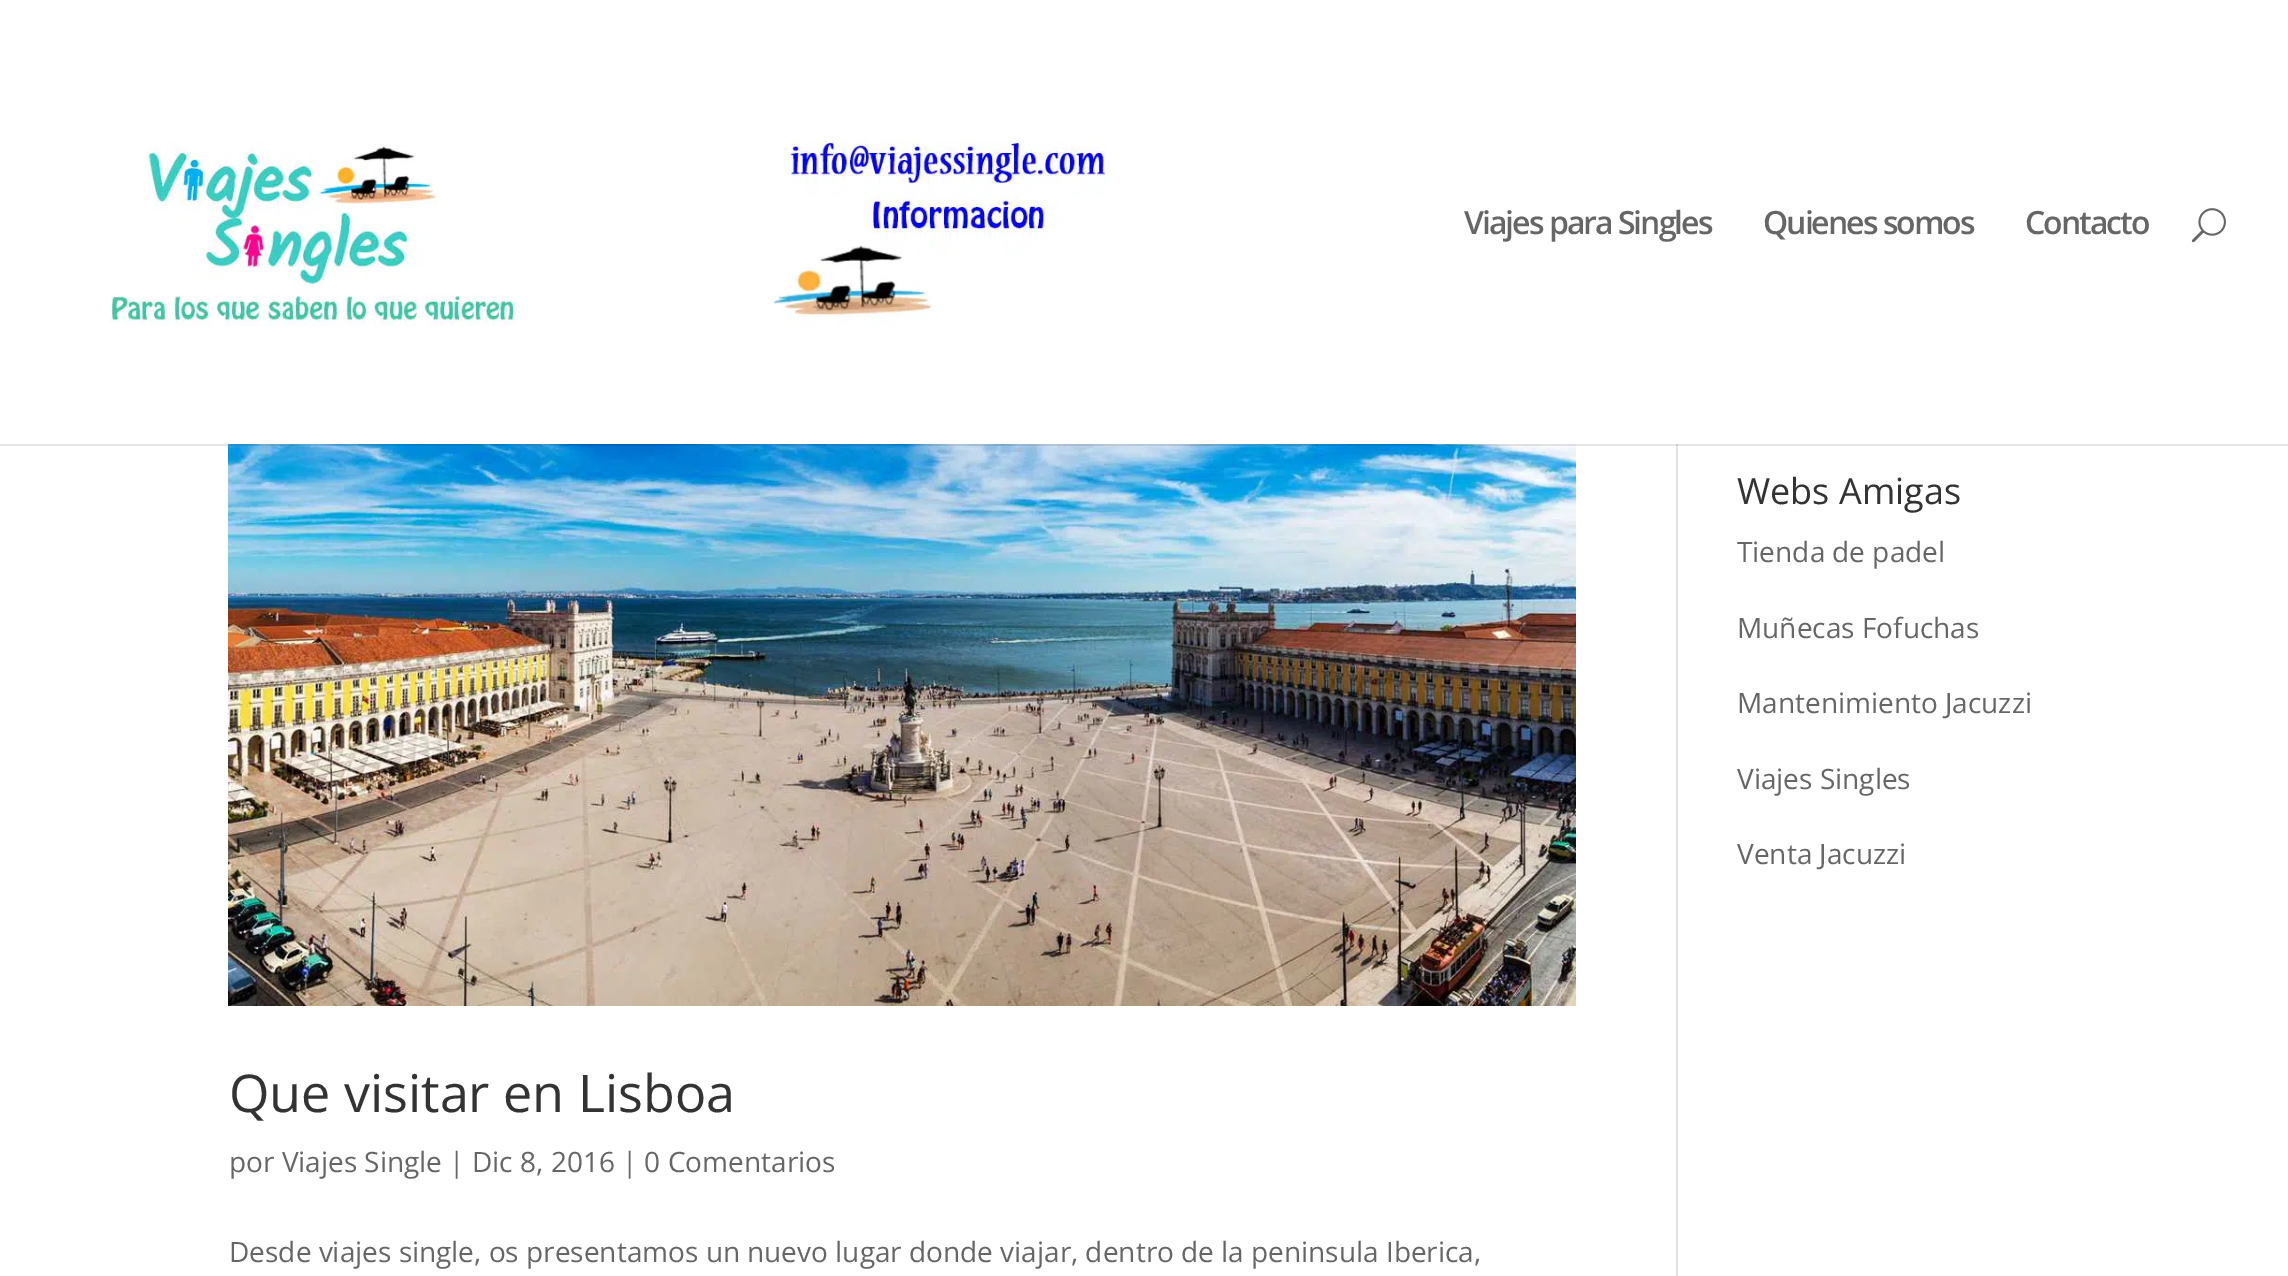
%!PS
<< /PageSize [2288 1276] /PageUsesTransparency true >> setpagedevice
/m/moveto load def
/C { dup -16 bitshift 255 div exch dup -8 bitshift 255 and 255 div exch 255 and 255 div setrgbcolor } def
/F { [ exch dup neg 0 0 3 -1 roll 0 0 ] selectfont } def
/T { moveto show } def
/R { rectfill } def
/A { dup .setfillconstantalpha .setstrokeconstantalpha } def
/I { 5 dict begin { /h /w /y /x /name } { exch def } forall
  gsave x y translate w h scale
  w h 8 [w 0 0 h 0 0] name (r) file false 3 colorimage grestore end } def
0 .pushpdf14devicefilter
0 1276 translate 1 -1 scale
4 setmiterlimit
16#FFFFFF C
0 0 2288 1276 R
16#E2E2E2 C
1676 444 2 832 R
(3.rgb) 228 444 1348 562 I
0.1 A
16#000000 C
0 444 2288 2 R
1 A
(1.rgb) 110 139 1000 188 I
/OpenSans-SemiBold 32 F
16#666666 C
1464 234 m -2 0 (Viajes para Singles) ashow
1763 234 m -2 0 (Quienes somos) ashow
2025 234 m -2 0 (Contacto) ashow
(2.rgb) 2191 208 35 35 I
/OpenSans-Regular 36 F
16#333333 C
(Webs Amigas) 1737 504 T
/OpenSans-Regular 28 F
16#666666 C
(Tienda de padel) 1737 562 T
(Muñecas Fofuchas) 1737 638 T
(Mantenimiento Jacuzzi) 1737 713 T
(Viajes Singles) 1737 789 T
(Venta Jacuzzi) 1737 864 T
/OpenSans-Regular 52 F
16#333333 C
(Que visitar en Lisboa) 229 1112 T
/OpenSans-Regular 28 F
16#666666 C
(por Viajes Single | Dic 8, 2016 | 0 Comentarios) 229 1172 T
(Desde viajes single, os presentamos un nuevo lugar donde viajar, dentro de la peninsula Iberica,) 229 1262 T
.poppdf14devicefilter showpage
